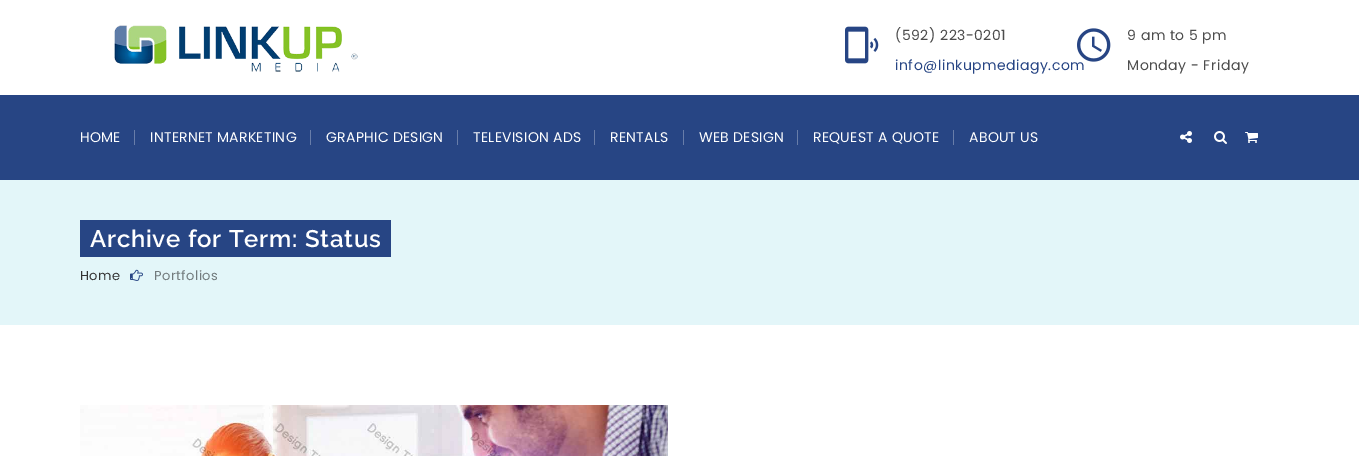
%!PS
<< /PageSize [1359 456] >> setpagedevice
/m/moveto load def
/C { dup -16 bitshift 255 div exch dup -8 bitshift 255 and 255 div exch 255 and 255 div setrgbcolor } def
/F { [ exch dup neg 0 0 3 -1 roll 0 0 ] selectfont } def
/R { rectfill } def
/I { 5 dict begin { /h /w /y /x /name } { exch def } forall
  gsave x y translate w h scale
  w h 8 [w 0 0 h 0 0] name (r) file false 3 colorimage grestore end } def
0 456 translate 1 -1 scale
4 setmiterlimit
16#FFFFFF C
0 0 1359 456 R
(1.rgb) 114 25 244 47 I
(2.rgb) 845 26 34 38 I
/Poppins-Regular 14 F
16#4D4D4D C
895 40 m .5 0 (\(592\) 223-0201) ashow
16#274584 C
895 70 m .5 0 (info@linkupmediagy.com) ashow
(3.rgb) 1077 28 34 34 I
16#4D4D4D C
1127 40 m .5 0 (9 am to 5 pm) ashow
1127 70 m .5 0 (Monday - Friday) ashow
16#274584 C
0 95 1359 85 R
16#FFFFFF C
80 142 m .25 0 (HOME) ashow
16#687DA9 C
134 130 1 15 R
16#FFFFFF C
150 142 m .25 0 (INTERNET MARKETING) ashow
16#687DA9 C
310 130 1 15 R
16#FFFFFF C
326 142 m .25 0 (GRAPHIC DESIGN) ashow
16#687DA9 C
457 130 1 15 R
16#FFFFFF C
473 142 m .25 0 (TELEVISION ADS) ashow
16#687DA9 C
594 130 1 15 R
16#FFFFFF C
610 142 m .25 0 (RENTALS) ashow
16#687DA9 C
683 130 1 15 R
16#FFFFFF C
699 142 m .25 0 (WEB DESIGN) ashow
16#687DA9 C
797 130 1 15 R
16#FFFFFF C
813 142 m .25 0 (REQUEST A QUOTE) ashow
16#687DA9 C
953 130 1 15 R
16#FFFFFF C
969 142 m .25 0 (ABOUT US) ashow
(4.rgb) 1180 131 12 12 I
(5.rgb) 1214 131 13 13 I
(6.rgb) 1245 132 13 11 I
16#E3F6F9 C
0 180 1359 145 R
16#274584 C
80 220 311 37 R
/Raleway-SemiBold 24 F
16#FFFFFF C
90 247 m .75 0 (Archive for Term: Status) ashow
/Poppins-Regular 13 F
16#333333 C
80 280 m .5 0 (Home) ashow
(7.rgb) 130 269 13 12 I
16#727B7D C
154 280 m .5 0 (Portfolios) ashow
(8.rgb) 80 405 588 51 I
showpage
